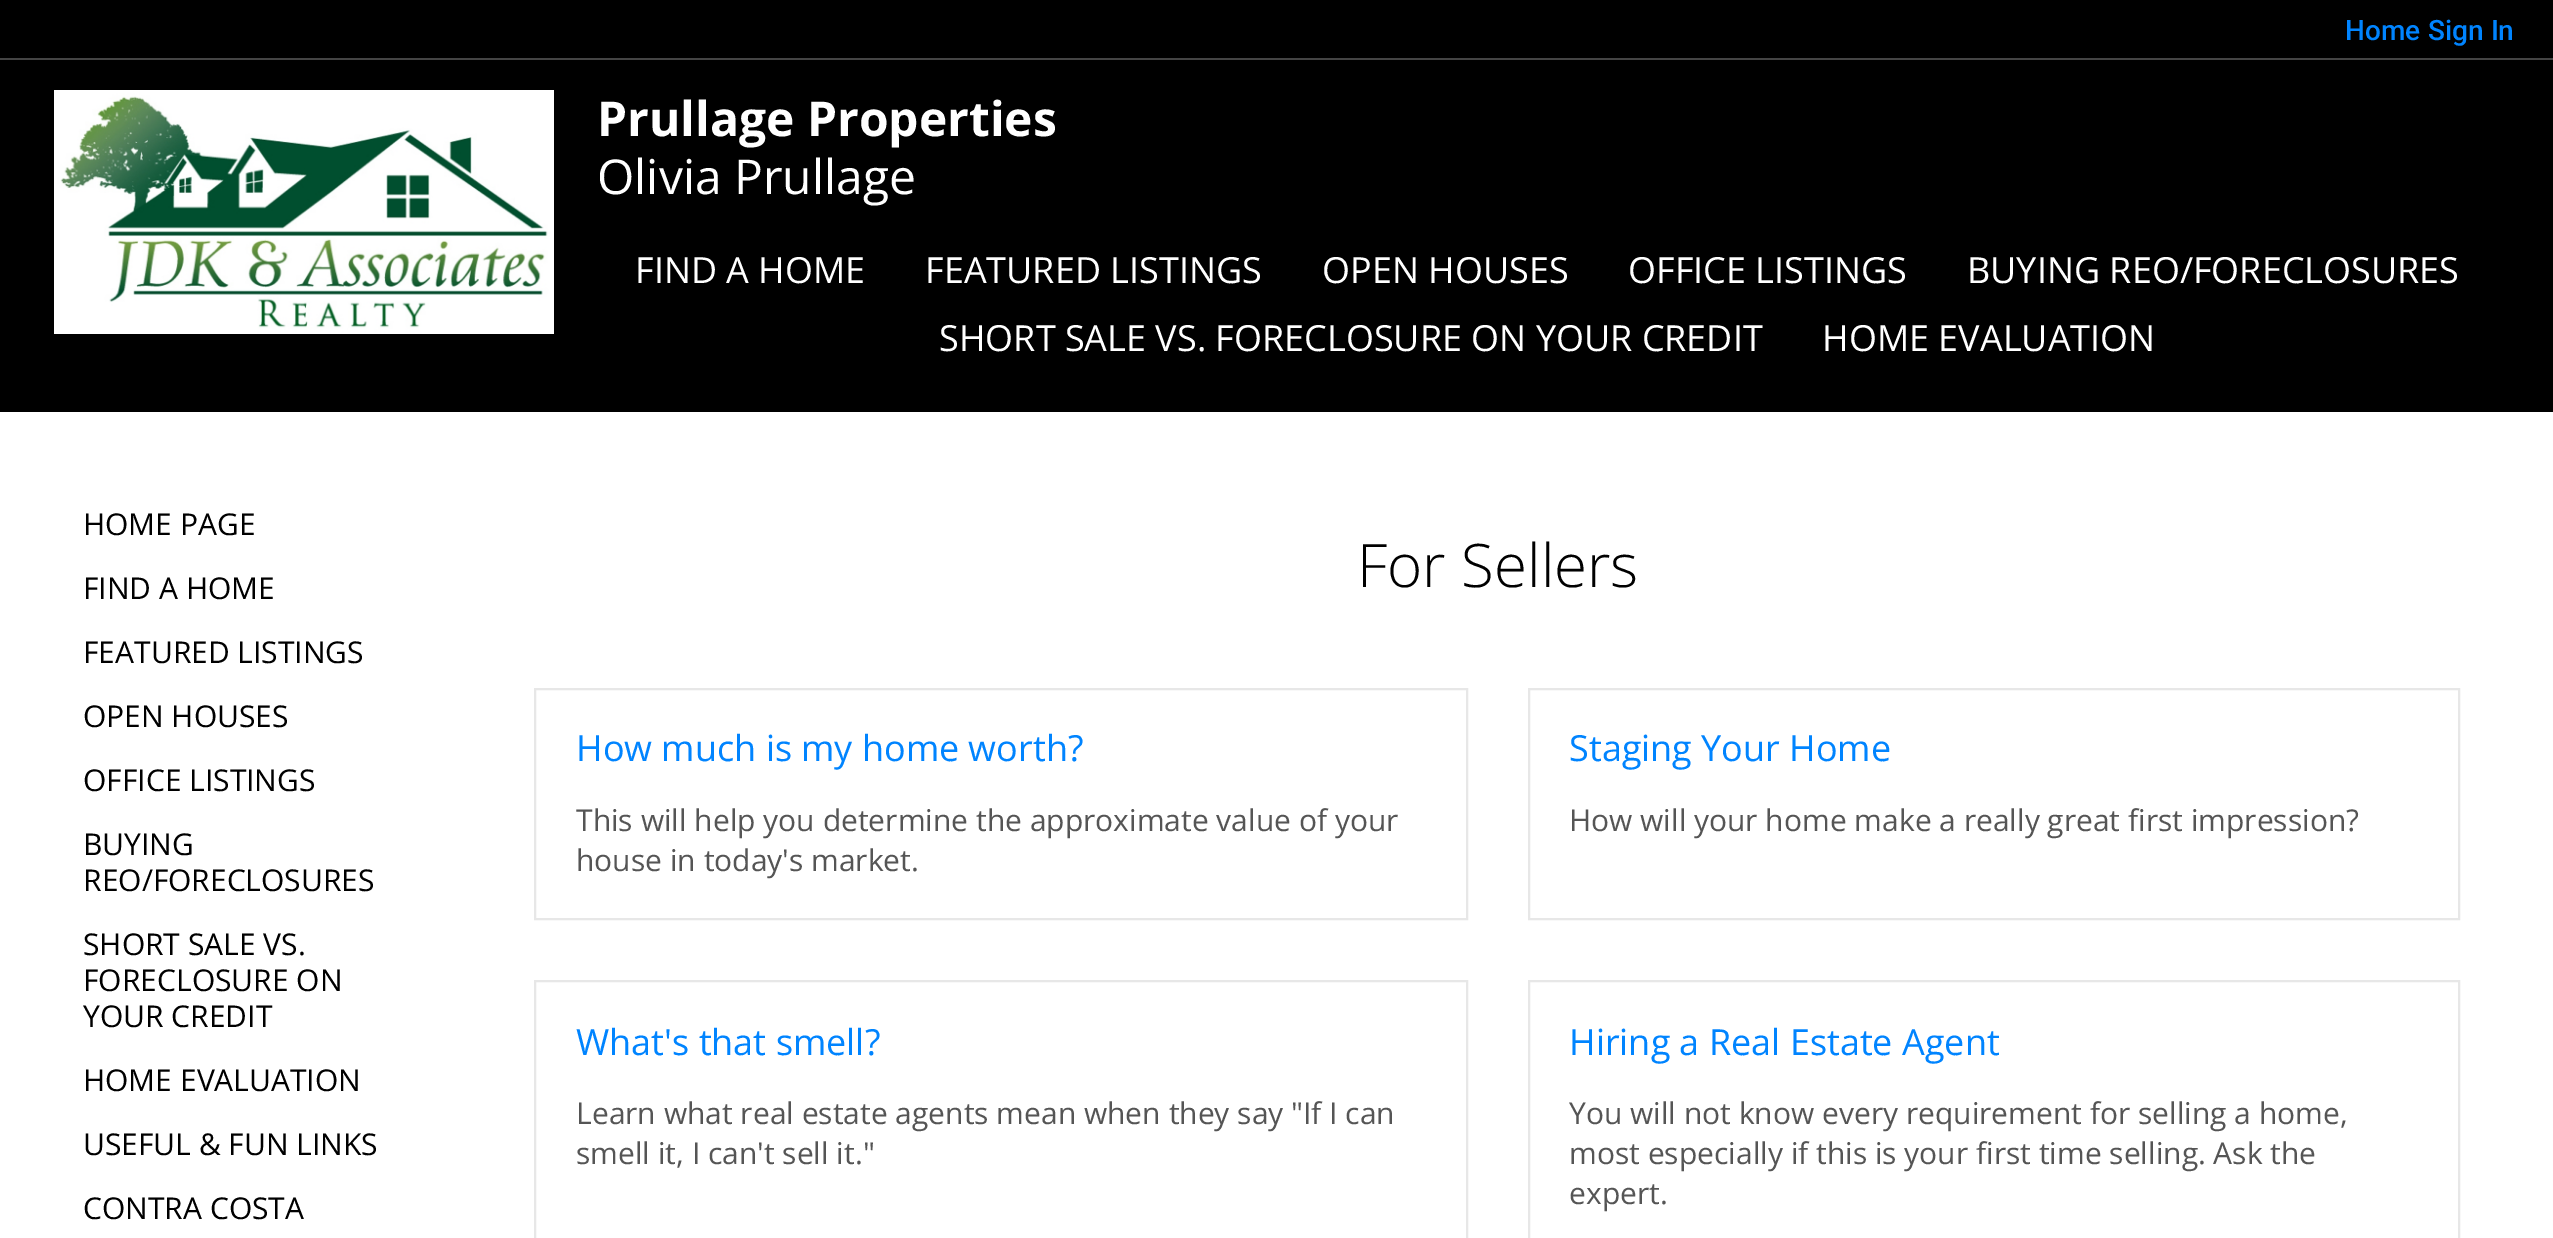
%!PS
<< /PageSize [2553 1238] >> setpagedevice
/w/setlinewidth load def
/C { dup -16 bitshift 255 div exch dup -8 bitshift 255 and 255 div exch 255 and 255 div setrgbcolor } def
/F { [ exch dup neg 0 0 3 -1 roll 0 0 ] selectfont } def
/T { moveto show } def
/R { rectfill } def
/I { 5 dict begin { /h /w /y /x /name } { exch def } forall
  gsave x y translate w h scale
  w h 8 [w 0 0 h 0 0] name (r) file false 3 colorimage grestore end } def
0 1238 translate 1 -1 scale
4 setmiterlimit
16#000000 C
0 0 2553 1238 R
16#444444 C
0 58 2553 2 R
/Roboto-Medium 28 F
16#0084FF C
(Home) 2345 40 T
(Sign In) 2428 40 T
(1.rgb) 54 90 500 244 I
/OpenSans-Bold 48 F
16#FFFFFF C
(Prullage Properties) 597 136 T
/OpenSans-Regular 48 F
(Olivia Prullage) 597 194 T
/OpenSans-Regular 36 F
(FIND A HOME) 635 283 T
(FEATURED LISTINGS) 925 283 T
(OPEN HOUSES) 1322 283 T
(OFFICE LISTINGS) 1628 283 T
(BUYING REO/FORECLOSURES) 1967 283 T
(SHORT SALE VS. FORECLOSURE ON YOUR CREDIT) 939 351 T
(HOME EVALUATION) 1822 351 T
0 412 2553 826 R
/OpenSans-Regular 30 F
16#000000 C
(HOME PAGE) 83 535 T
(FIND A HOME) 83 599 T
(FEATURED LISTINGS) 83 663 T
(OPEN HOUSES) 83 727 T
(OFFICE LISTINGS) 83 791 T
(BUYING) 83 855 T
(REO/FORECLOSURES) 83 891 T
(SHORT SALE VS.) 83 955 T
(FORECLOSURE ON) 83 991 T
(YOUR CREDIT) 83 1027 T
(HOME EVALUATION) 83 1091 T
(USEFUL & FUN LINKS) 83 1155 T
(CONTRA COSTA) 83 1219 T
/OpenSans-Light 60 F
(For Sellers) 1357 587 T
16#E7E7E7 C
2 w
535 689 932 230 rectstroke
/OpenSans-Regular 36 F
16#0084FF C
(How much is my home worth?) 576 761 T
/OpenSans-Regular 30 F
16#555555 C
(This will help you determine the approximate value of your) 576 831 T
(house in today's market.) 576 871 T
16#E7E7E7 C
1529 689 930 230 rectstroke
/OpenSans-Regular 36 F
16#0084FF C
(Staging Your Home) 1569 761 T
/OpenSans-Regular 30 F
16#555555 C
(How will your home make a really great first impression?) 1569 831 T
16#E7E7E7 C
535 981 932 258 rectstroke
/OpenSans-Regular 36 F
16#0084FF C
(What's that smell?) 576 1055 T
/OpenSans-Regular 30 F
16#555555 C
(Learn what real estate agents mean when they say "If I can) 576 1124 T
(smell it, I can't sell it.") 576 1164 T
16#E7E7E7 C
1529 981 930 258 rectstroke
/OpenSans-Regular 36 F
16#0084FF C
(Hiring a Real Estate Agent) 1569 1055 T
/OpenSans-Regular 30 F
16#555555 C
(You will not know every requirement for selling a home,) 1569 1124 T
(most especially if this is your first time selling. Ask the) 1569 1164 T
(expert.) 1569 1204 T
showpage
